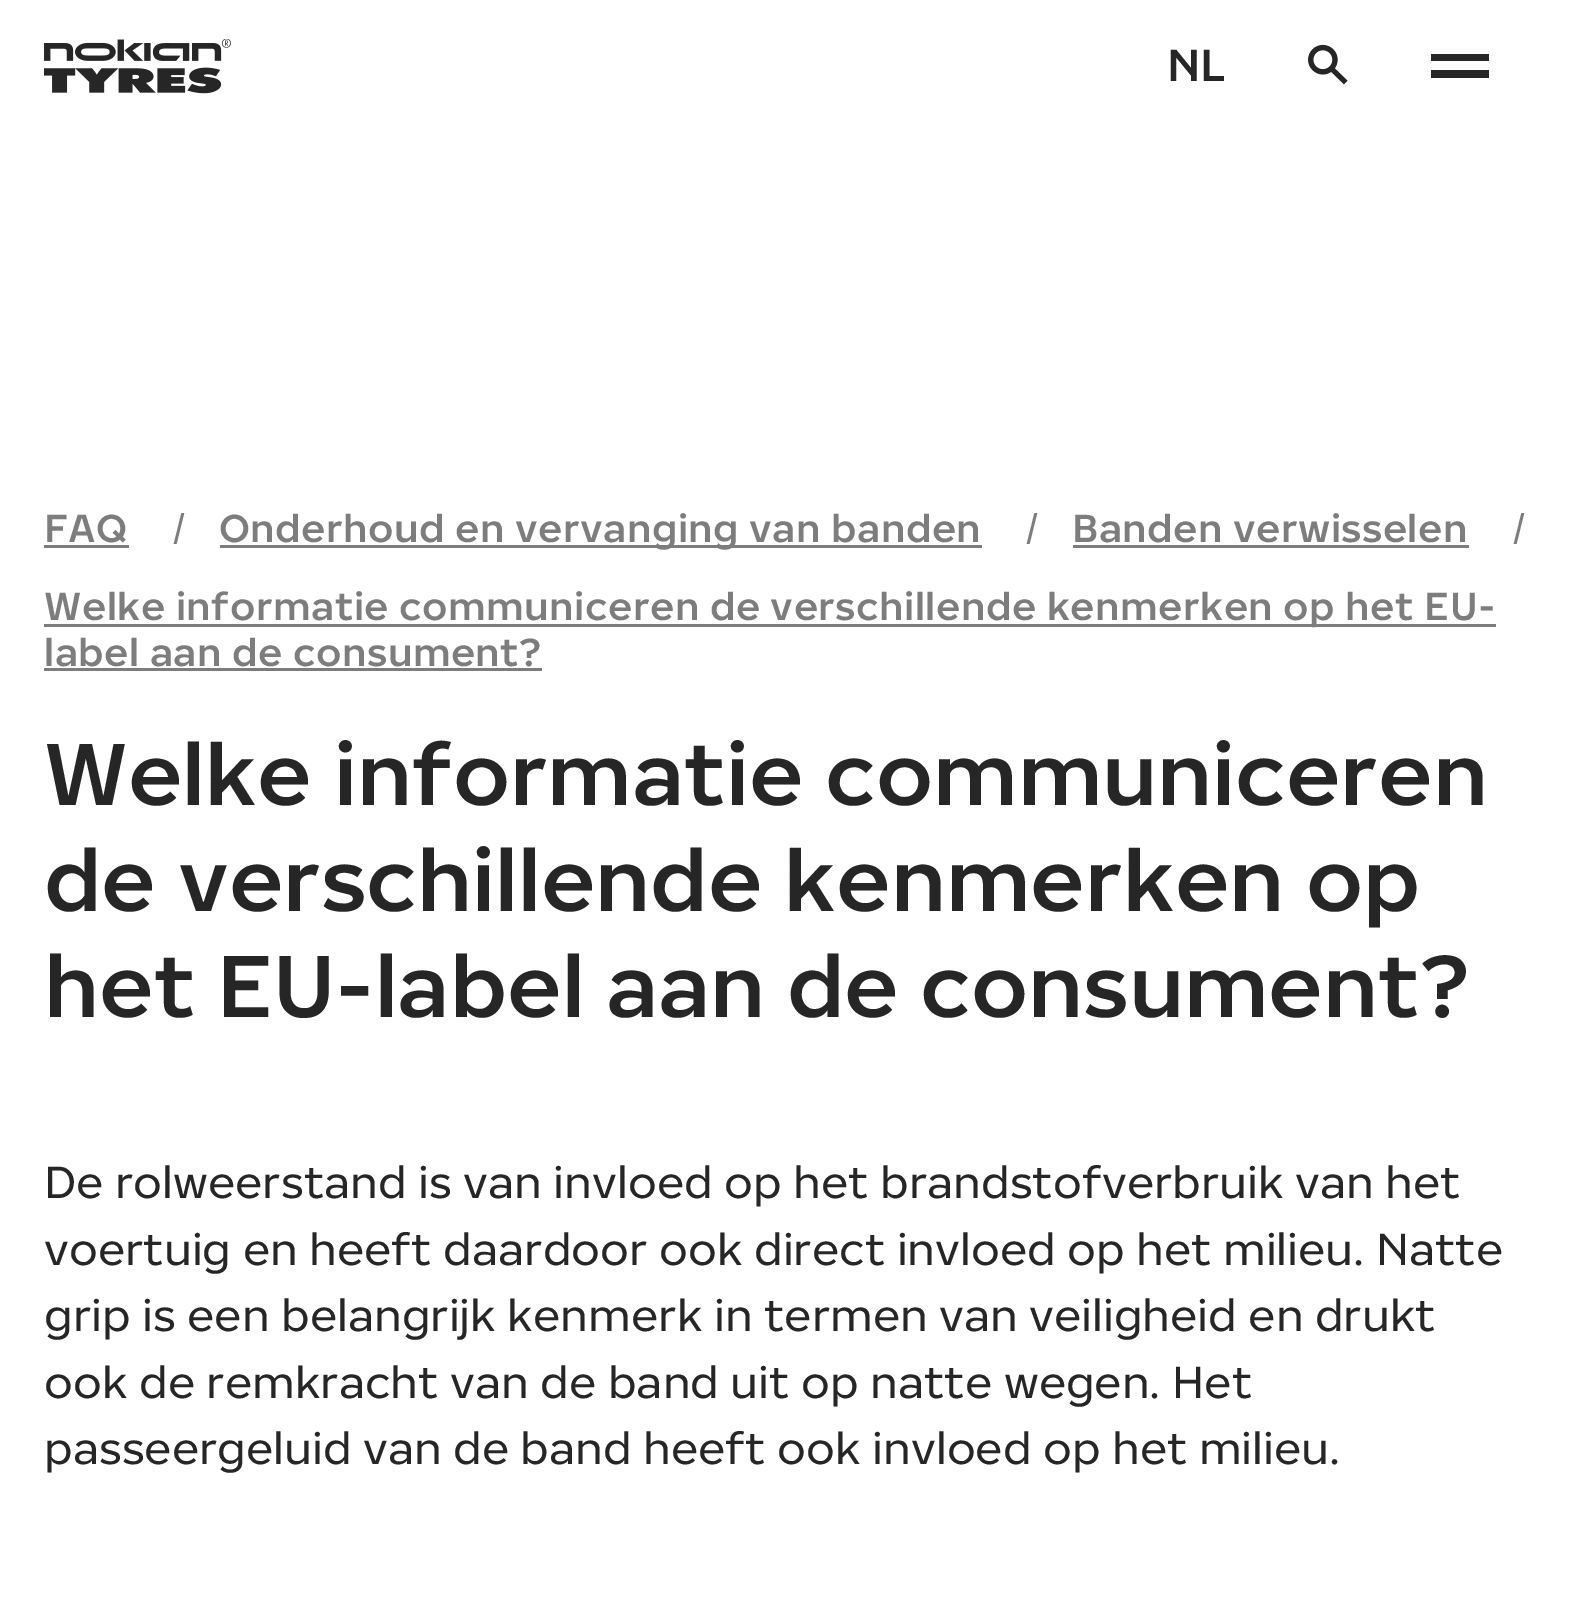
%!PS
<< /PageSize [1569 1611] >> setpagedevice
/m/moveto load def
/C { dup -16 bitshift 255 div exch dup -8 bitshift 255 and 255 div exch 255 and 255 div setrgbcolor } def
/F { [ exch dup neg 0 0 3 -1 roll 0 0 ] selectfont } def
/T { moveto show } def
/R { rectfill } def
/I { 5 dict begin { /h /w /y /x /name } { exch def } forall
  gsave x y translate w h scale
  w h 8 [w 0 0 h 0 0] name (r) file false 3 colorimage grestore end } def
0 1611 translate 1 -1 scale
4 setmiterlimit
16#FFFFFF C
0 0 1569 1611 R
(1.rgb) 44 39 187 55 I
/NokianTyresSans-Medium 44.4 F
16#262626 C
(NL) 1167 81 T
(2.rgb) 1308 44 40 41 I
1431 70 58 8 R
1431 54 58 7 R
/NokianTyresSans-Medium 38.5 F
16#7D7D7D C
44 542 m .45 0 (FAQ) ashow
44 545 85 3 R
/NokianTyresSans-Regular 38.5 F
172 542 m .45 0 (/) ashow
220 545 762 3 R
/NokianTyresSans-Medium 38.5 F
219 542 m .45 0 (Onderhoud en vervanging van banden) ashow
/NokianTyresSans-Regular 38.5 F
1025 542 m .45 0 (/) ashow
/NokianTyresSans-Medium 38.5 F
1072 542 m .45 0 (Banden verwisselen) ashow
1073 545 396 3 R
/NokianTyresSans-Regular 38.5 F
1512 542 m .45 0 (/) ashow
44 624 1452 3 R
/NokianTyresSans-Medium 38.5 F
44 620 m .45 0 (Welke informatie communiceren de verschillende kenmerken op het EU-) ashow
44 666 m .45 0 (label aan de consument?) ashow
44 668 498 3 R
/NokianTyresSans-Medium 86.5 F
16#262626 C
(Welke informatie communiceren) 44 805 T
(de verschillende kenmerken op) 44 911 T
44 1017 m -.25 0 32 (het EU-label aan de consument?) widthshow
/NokianTyresSans-Regular 44.4 F
44 1198 m -.25 0 32 (De rolweerstand is van invloed op het brandstofverbruik van het) widthshow
44 1265 m -.25 0 32 (voertuig en heeft daardoor ook direct invloed op het milieu. Natte) widthshow
44 1331 m -.25 0 32 (grip is een belangrijk kenmerk in termen van veiligheid en drukt) widthshow
44 1398 m -.25 0 32 (ook de remkracht van de band uit op natte wegen. Het) widthshow
44 1464 m -.25 0 32 (passeergeluid van de band heeft ook invloed op het milieu.) widthshow
showpage
